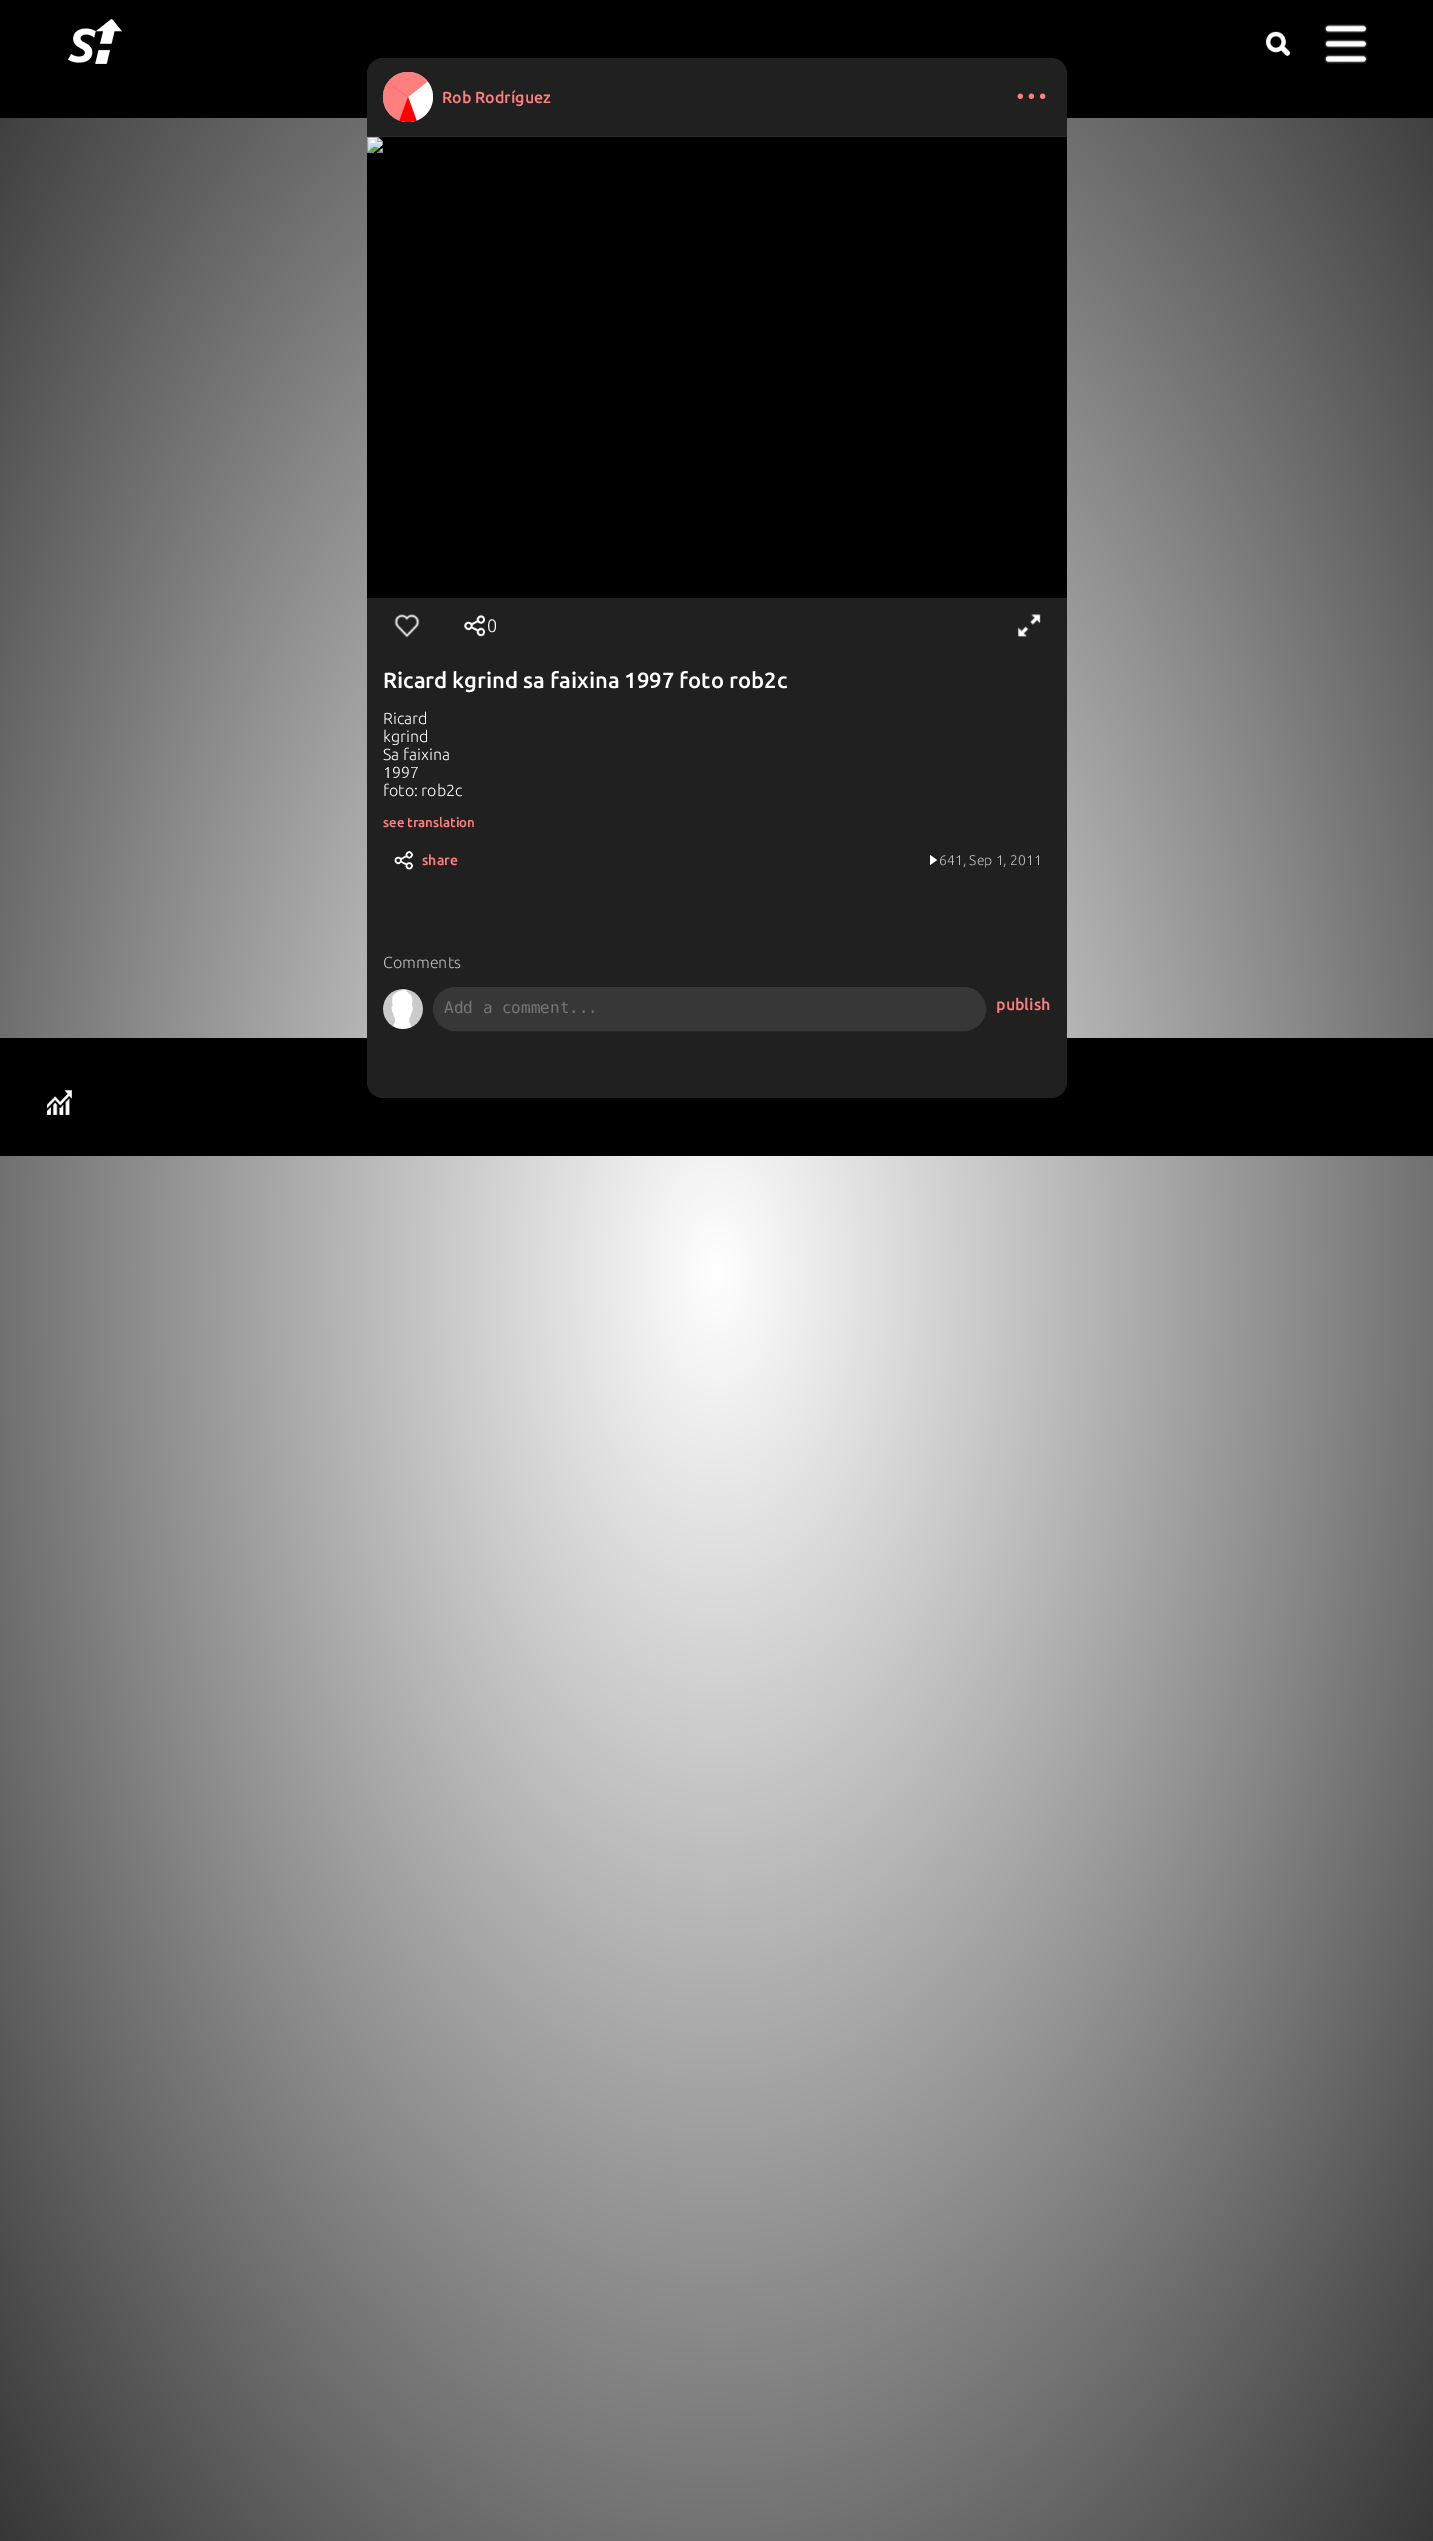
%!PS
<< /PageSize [1433 2541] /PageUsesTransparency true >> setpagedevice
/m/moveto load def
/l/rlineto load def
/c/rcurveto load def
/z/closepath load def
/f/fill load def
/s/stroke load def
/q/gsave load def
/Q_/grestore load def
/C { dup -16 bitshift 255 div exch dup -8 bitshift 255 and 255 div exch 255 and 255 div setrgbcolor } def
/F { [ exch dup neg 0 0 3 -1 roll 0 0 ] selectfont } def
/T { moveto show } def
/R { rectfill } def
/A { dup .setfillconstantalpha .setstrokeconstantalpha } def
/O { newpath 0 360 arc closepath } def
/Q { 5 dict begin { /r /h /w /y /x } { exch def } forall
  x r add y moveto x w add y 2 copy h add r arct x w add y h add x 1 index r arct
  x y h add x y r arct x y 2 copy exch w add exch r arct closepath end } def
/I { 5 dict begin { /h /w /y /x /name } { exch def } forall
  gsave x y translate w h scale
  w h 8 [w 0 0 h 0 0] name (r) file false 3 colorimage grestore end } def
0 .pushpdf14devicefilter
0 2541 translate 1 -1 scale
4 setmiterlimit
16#FFFFFF C
0 0 1433 2541 R
q 0 118 m 1433 0 l 0 2423 l -1433 0 l z clip newpath 717 1271 translate 1013 1797 scale
<< /ShadingType 3 /ColorSpace /DeviceRGB /Coords [0 0 0 0 0 1] /Extend [true true] /Function << /FunctionType 2 /Domain [0 1] /C0 [1 1 1] /C1 [.216 .216 .216] /N 1 >> >> shfill Q_
16#000000 C
0 0 1433 118 R
(1.rgb) 68 19 54 45 I
(2.rgb) 1266 31 24 25 I
(3.rgb) 1324 24 44 40 I
0 1038 1433 118 R
16#202020 C
367 58 700 1040 16 Q f
16#FFFFFF C
408 97 25 O f
0.5 A
16#FF0000 C
408 97 m -8.5 23.5 l -15.5 -5.5 -21.5 -25 -12 -38 c z f
408 97 m -20.5 -14.5 l 10 -13.5 29.5 -14 40 -1 c z f
1 A
408 97 m 8.5 23.5 l -5.5 2 -11.5 2 -17 0 c z f
/Ubuntu-Medium 16 F
16#FF7F7F C
(Rob Rodríguez) 442 103 T
1020.3 96.3 2.6 O f
1031.4 96.3 2.6 O f
1042.6 96.3 2.6 O f
16#000000 C
367 137 700 461 R
16#2B2B2B C
367 136 700 1 R
(4.rgb) 367 137 16 16 I
(5.rgb) 394 614 26 24 I
(6.rgb) 464 615 21 22 I
/Ubuntu-Light 18 F
16#FFFFFF C
(0) 487 632 T
(7.rgb) 1017 614 24 23 I
/Ubuntu-Medium 22 F
(Ricard kgrind sa faixina 1997 foto rob2c) 383 688 T
/Ubuntu-Light 16 F
(Ricard) 383 724 T
(kgrind) 383 742 T
(Sa faixina) 383 760 T
(1997) 383 778 T
(foto: rob2c) 383 796 T
/Ubuntu-Medium 13.25 F
16#FF7F7F C
(see translation) 383 827 T
(8.rgb) 394 851 19 19 I
/Ubuntu-Medium 14 F
(share) 422 865 T
16#FFFFFF C
930 865 m 0 -10 l 7 5 l z f
/Ubuntu-Light 14 F
16#BBBBBB C
(641, Sep 1, 2011) 939 865 T
/Ubuntu-Light 16 F
(Comments) 383 968 T
16#000000 C
403 1009 20 O f
(9.rgb) 383 989 40 40 I
16#373737 C
433.5 987.5 552 43 21.5 Q q f Q_
s
/DejaVuSansMono-Regular 16 F
16#757575 C
(Add a comment...) 444 1013 T
/Ubuntu-Medium 16 F
16#FF7F7F C
(publish) 996 1010 T
(10.rgb) 47 1090 25 25 I
.poppdf14devicefilter showpage
